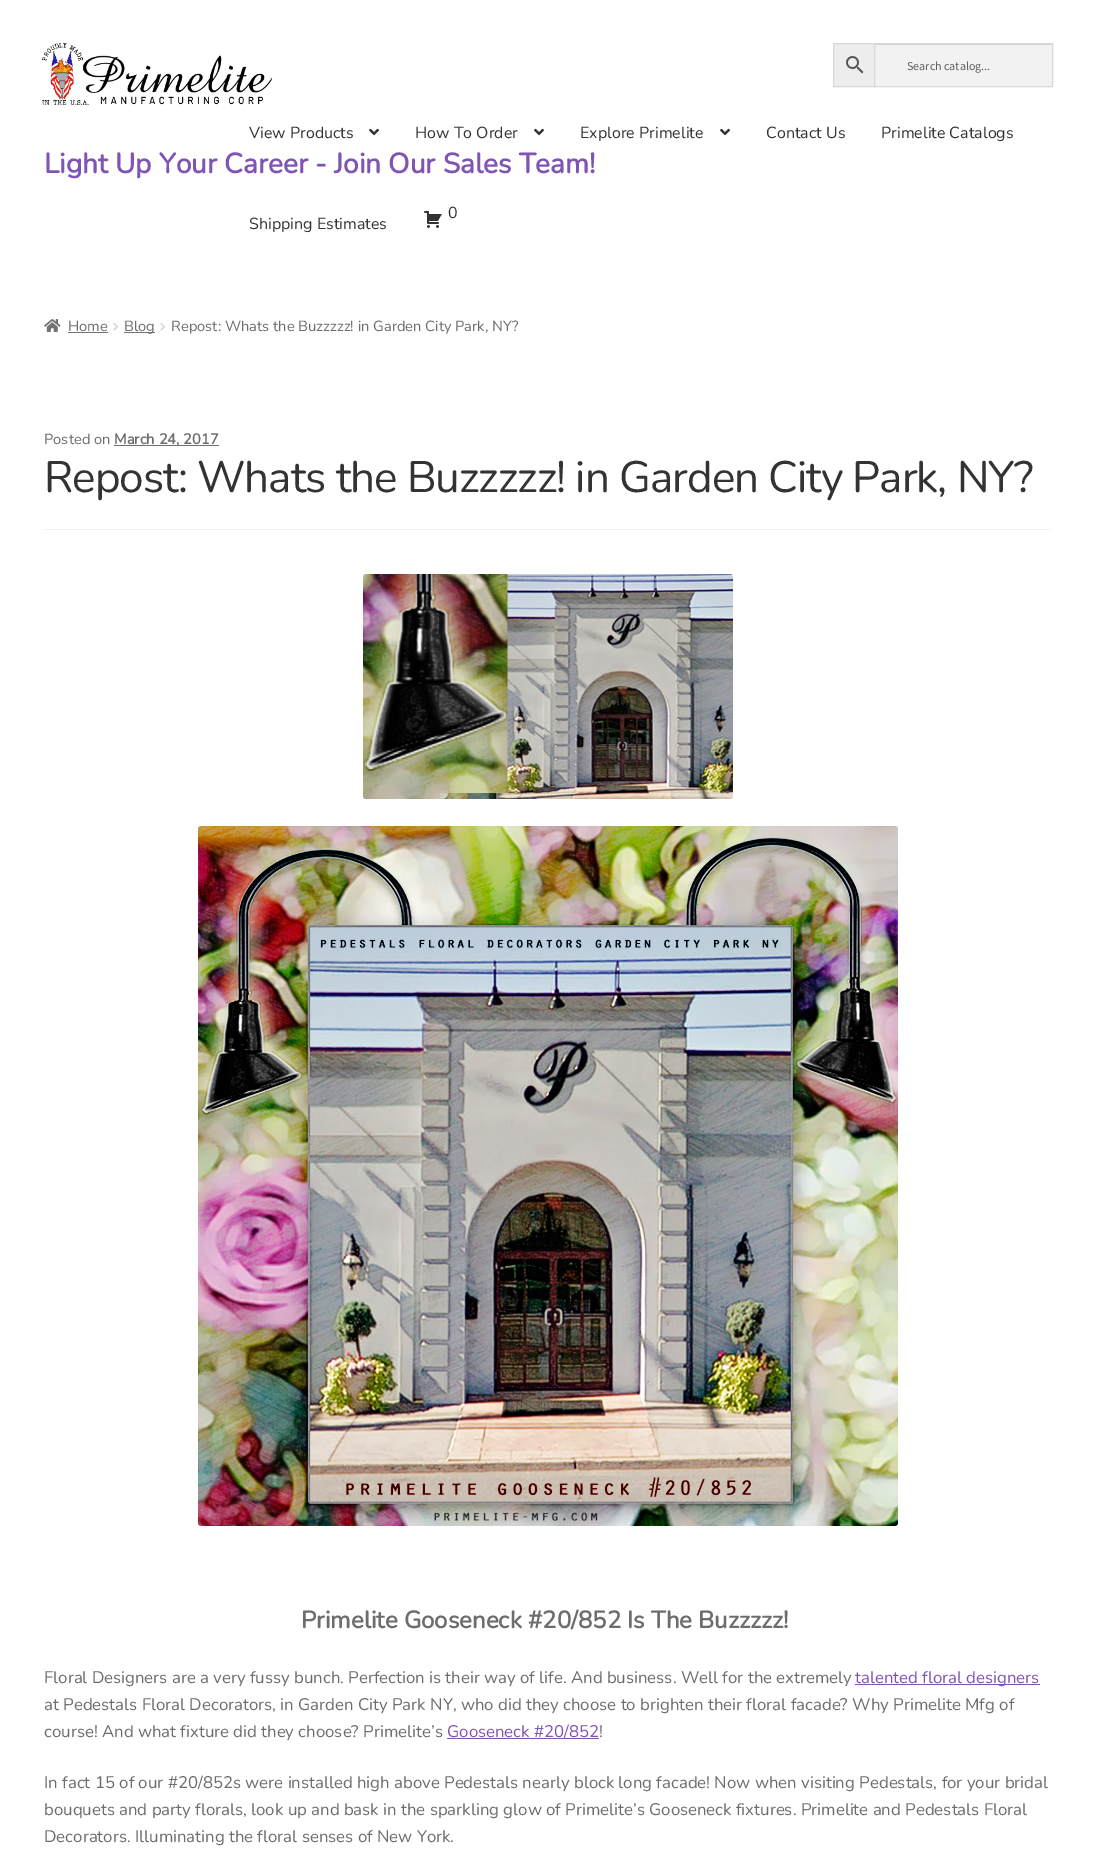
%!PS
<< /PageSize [1095 1873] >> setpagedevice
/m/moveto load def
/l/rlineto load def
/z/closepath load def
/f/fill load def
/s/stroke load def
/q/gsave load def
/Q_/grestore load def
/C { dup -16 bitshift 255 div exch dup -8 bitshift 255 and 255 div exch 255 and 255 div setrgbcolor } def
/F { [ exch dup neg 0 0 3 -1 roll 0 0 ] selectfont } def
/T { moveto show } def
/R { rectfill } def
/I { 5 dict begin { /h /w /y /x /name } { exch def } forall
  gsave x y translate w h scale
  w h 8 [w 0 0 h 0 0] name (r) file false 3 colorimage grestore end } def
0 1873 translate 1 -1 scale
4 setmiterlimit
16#FFFFFF C
0 0 1095 1873 R
(1.rgb) 42 43 230 62 I
16#EDEDED C
833.5 43.5 m 41 0 l 0 43 l -41 0 l z q f Q_
16#D8D8D8 C
s
(2.rgb) 846 56 18 18 I
16#F2F2F2 C
875 45 177 41 R
16#D4D4D4 C
875 44 177 1 R
16#D8D8D8 C
874.5 43.5 178 43 rectstroke
/SourceSansPro-Regular 12 F
16#616161 C
(Search catalog...) 907 70 T
/Nunito-ExtraLight 16 F
16#333333 C
(View Products) 249 138 T
(3.rgb) 369 128 10 8 I
(How To Order) 415 138 T
(3.rgb) 534 128 10 8 I
(Explore Primelite) 580 138 T
(3.rgb) 720 128 10 8 I
(Contact Us) 766 138 T
(Primelite Catalogs) 881 138 T
(4.rgb) 424 211 18 17 I
(0) 448 218 T
(Shipping Estimates) 249 229 T
/Nunito-Bold 28 F
16#7F54B3 C
(Light Up Your Career - Join Our Sales Team!) 44 173 T
(5.rgb) 44 319 17 13 I
/Nunito-ExtraLight 14.7 F
16#6D6D6D C
(Home) 68 331 T
16#727272 C
68 332 40 1 R
(6.rgb) 113 322 6 9 I
124 332 31 1 R
16#6D6D6D C
(Blog) 124 331 T
(6.rgb) 160 322 6 9 I
(Repost: Whats the Buzzzzz! in Garden City Park, NY?) 171 331 T
16#F2F2F2 C
44 529 1007 1 R
16#6D6D6D C
(Posted on) 44 444 T
16#727272 C
114 445 105 1 R
/Nunito-Bold 14.7 F
16#6D6D6D C
(March 24, 2017) 114 444 T
/Nunito-ExtraLight 44 F
16#333333 C
44 492 m -1 0 (Repost: Whats the Buzzzzz! in Garden City Park, NY?) ashow
(7.rgb) 363 574 370 225 I
(8.rgb) 198 826 700 700 I
/Nunito-Bold 24 F
16#6D6D6D C
(Primelite Gooseneck #20/852 Is The Buzzzzz!) 301 1628 T
/Nunito-ExtraLight 16.8 F
(Floral Designers are a very fussy bunch. Perfection is their way of life. And business. Well for the extremely) 44 1683 T
16#7F54B3 C
855 1684 185 1 R
(talented floral designers) 855 1683 T
16#6D6D6D C
(at Pedestals Floral Decorators, in Garden City Park NY, who did they choose to brighten their floral facade? Why Primelite Mfg of) 44 1710 T
(course! And what fixture did they choose? Primelite’s) 44 1737 T
16#7F54B3 C
(Gooseneck #20/852) 447 1737 T
447 1738 152 1 R
16#6D6D6D C
(!) 599 1737 T
(In fact 15 of our #20/852s were installed high above Pedestals nearly block long facade! Now when visiting Pedestals, for your bridal) 44 1788 T
(bouquets and party florals, look up and bask in the sparkling glow of Primelite’s Gooseneck fixtures. Primelite and Pedestals Floral) 44 1815 T
(Decorators. Illuminating the floral senses of New York.) 44 1842 T
showpage
